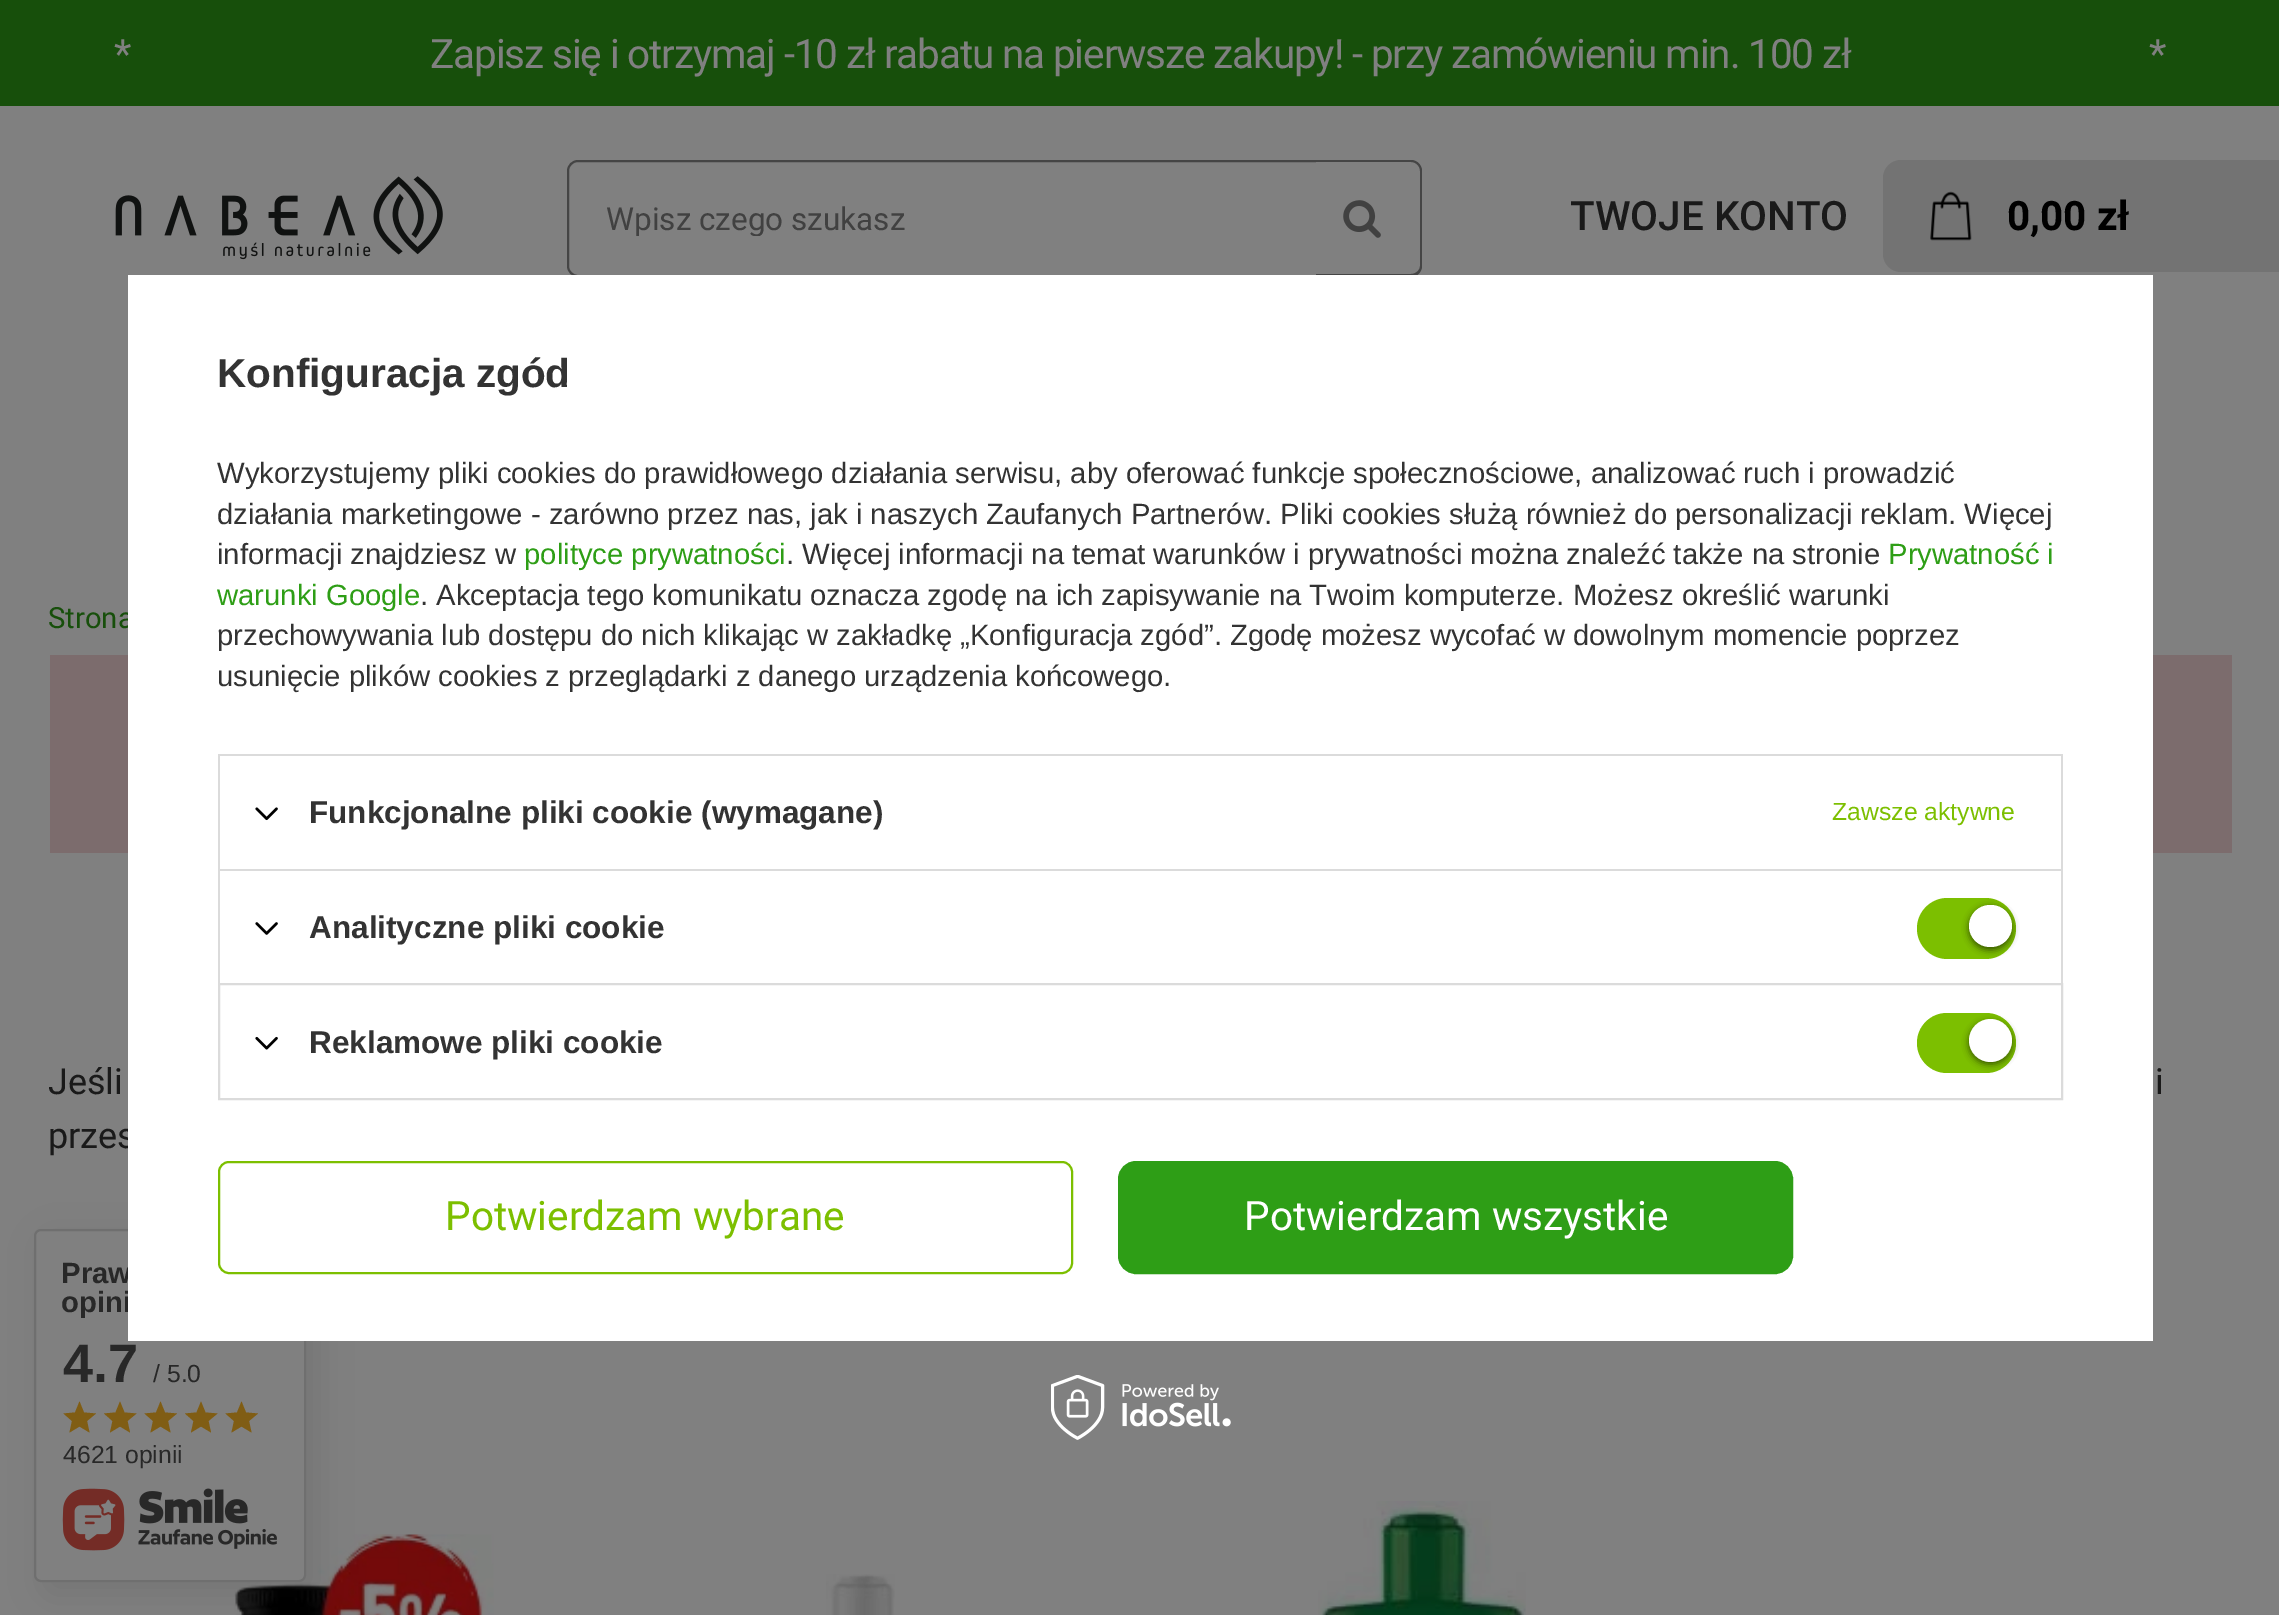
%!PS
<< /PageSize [2279 1615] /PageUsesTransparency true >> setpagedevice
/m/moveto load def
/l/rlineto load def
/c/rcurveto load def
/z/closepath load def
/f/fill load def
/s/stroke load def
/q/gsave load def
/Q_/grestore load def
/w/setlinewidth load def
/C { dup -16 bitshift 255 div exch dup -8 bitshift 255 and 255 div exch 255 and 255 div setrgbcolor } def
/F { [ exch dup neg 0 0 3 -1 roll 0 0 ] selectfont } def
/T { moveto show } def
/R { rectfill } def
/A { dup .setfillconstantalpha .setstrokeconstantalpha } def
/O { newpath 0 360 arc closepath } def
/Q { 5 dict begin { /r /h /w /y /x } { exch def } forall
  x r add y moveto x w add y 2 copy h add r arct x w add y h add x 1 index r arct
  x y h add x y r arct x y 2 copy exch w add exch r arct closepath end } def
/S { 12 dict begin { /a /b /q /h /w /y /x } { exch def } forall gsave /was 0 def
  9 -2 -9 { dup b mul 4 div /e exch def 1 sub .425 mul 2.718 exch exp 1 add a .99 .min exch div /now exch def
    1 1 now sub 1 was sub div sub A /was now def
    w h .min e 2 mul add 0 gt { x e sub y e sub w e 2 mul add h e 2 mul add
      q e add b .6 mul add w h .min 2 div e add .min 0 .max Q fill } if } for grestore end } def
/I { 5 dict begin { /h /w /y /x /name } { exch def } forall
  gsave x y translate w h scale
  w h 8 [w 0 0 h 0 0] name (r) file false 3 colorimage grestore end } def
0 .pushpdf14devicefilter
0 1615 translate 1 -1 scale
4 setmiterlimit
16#808080 C
0 0 2279 1615 R
16#174F0B C
0 0 2279 106 R
/Roboto-Regular 40.5 F
16#808080 C
114 68 m -1.12 0 (*) ashow
430 68 m -1.12 0 (Zapisz się i otrzymaj -10 zł rabatu na pierwsze zakupy! - przy zamówieniu min. 100 zł) ashow
2149 68 m -1.12 0 (*) ashow
(1.rgb) 115 176 328 84 I
16#454545 C
2 w
578 161 m 740 0 l 0 115 l -740 0 l -5.5 0 -10 -4.5 -10 -10 c 0 -95 l 0 -5.5 4.5 -10 10 -10 c z s
q
605 200 711 36 rectclip
/Roboto-Regular 31.5 F
16#414141 C
(Wpisz czego szukasz) 606 230 T
Q_
16#808080 C
1316 160 m 95 0 l 6 0 11 5 11 11 c 0 95 l 0 6 -5 11 -11 11 c -95 0 l z f
16#454545 C
1316 160 m 95 0 l 6 0 11 5 11 11 c 0 95 l 0 6 -5 11 -11 11 c -95 0 l z 1316 162 m 95 0 l 5 0 9 4 9 9 c 0 95 l 0 4 -4 8 -9 8 c -95 0 l z eofill
(2.rgb) 1343 200 38 38 I
/Roboto-Medium 40.5 F
16#1A1A1A C
(TWOJE KONTO) 1570 230 T
16#737373 C
1883 160 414 112 18 Q f
(3.rgb) 1930 191 42 50 I
/Roboto-Bold 40.5 F
16#000000 C
(0,00 zł) 2007 230 T
/Roboto-Regular 29.25 F
16#174F0B C
(Strona) 48 628 T
16#7C6C6D C
50 655 2182 198 R
/Roboto-Regular 36 F
16#1A1A1A C
(Jeśli) 48 1094 T
(i) 2155 1094 T
(przes) 48 1148 T
(4.rgb) 234 1534 260 81 I
(5.rgb) 826 1574 69 41 I
(6.rgb) 1318 1501 208 114 I
16#000000 C
45 1240 272 353 7 17 .1 S
16#808080 C
35 1230 270 351 6 Q q f Q_
16#6F6F6F C
s
/LiberationSans-Bold 29.25 F
16#282828 C
(Praw) 61 1283 T
(opini) 61 1312 T
16#FFFFFF C
128 275 2025 1066 R
/LiberationSans-Bold 40.5 F
16#333333 C
(Konfiguracja zgód) 217 387 T
/LiberationSans-Regular 29.25 F
(Wykorzystujemy pliki cookies do prawidłowego działania serwisu, aby oferować funkcje społecznościowe, analizować ruch i prowadzić) 217 483 T
(działania marketingowe - zarówno przez nas, jak i naszych Zaufanych Partnerów. Pliki cookies służą również do personalizacji reklam. Więcej) 217 524 T
(informacji znajdziesz w) 217 564 T
16#2E9E16 C
(polityce prywatności) 524 564 T
16#333333 C
(. Więcej informacji na temat warunków i prywatności można znaleźć także na stronie) 786 564 T
16#2E9E16 C
(Prywatność i) 1888 564 T
(warunki Google) 217 605 T
16#333333 C
(. Akceptacja tego komunikatu oznacza zgodę na ich zapisywanie na Twoim komputerze. Możesz określić warunki) 420 605 T
(przechowywania lub dostępu do nich klikając w zakładkę „Konfiguracja zgód”. Zgodę możesz wycofać w dowolnym momencie poprzez) 217 645 T
(usunięcie plików cookies z przeglądarki z danego urządzenia końcowego.) 217 686 T
16#DBDBDB C
218 754 1845 2 R
2061 754 2 115 R
218 754 2 115 R
(7.rgb) 255 807 23 14 I
/LiberationSans-Bold 31.5 F
16#333333 C
(Funkcjonalne pliki cookie \(wymagane\)) 309 823 T
/LiberationSans-Regular 24.75 F
16#7CBF00 C
(Zawsze aktywne) 1832 820 T
16#DBDBDB C
218 869 1845 2 R
2061 869 2 114 R
218 869 2 114 R
(8.rgb) 255 922 23 13 I
/LiberationSans-Bold 31.5 F
16#333333 C
(Analityczne pliki cookie) 309 938 T
16#7CBF00 C
1917 898 99 61 30.5 Q f
16#000000 C
1969 907 43 43 21.5 3.5 .56 S
16#FFFFFF C
1969 905 43 42 21 Q f
16#DBDBDB C
219 984 1843 115 rectstroke
(9.rgb) 255 1036 23 14 I
16#333333 C
(Reklamowe pliki cookie) 309 1053 T
16#7CBF00 C
1917 1013 99 60 30 Q f
16#000000 C
1969 1022 43 42 21 3.5 .56 S
16#FFFFFF C
1990.5 1040.5 21.5 O f
16#7CBF00 C
219 1162 853 111 10 Q s
/Roboto-Regular 40.5 F
(Potwierdzam wybrane) 445 1230 T
16#2E9E16 C
1119 1162 673 111 17 Q q f Q_
s
16#FFFFFF C
(Potwierdzam wszystkie) 1244 1230 T
(10.rgb) 1051 1375 180 65 I
/LiberationSans-Bold 54 F
16#282828 C
(4.7) 63 1382 T
/LiberationSans-Regular 24.75 F
(/ 5.0) 153 1382 T
16#805D14 C
69.5 1432.5 m 2.5 -11.5 l -8.5 -7.5 l 11.5 -1 l 4.5 -11 l 4.5 11 l 12 1 l -9 7.5 l 2.5 11.5 l -10 -6 l z f
110 1432.5 m 2.5 -11.5 l -8.5 -7.5 l 11.5 -1 l 4.5 -11 l 4.5 11 l 12 1 l -9 7.5 l 2.5 11.5 l -10 -6 l z f
150.5 1432.5 m 2.5 -11.5 l -8.5 -7.5 l 11.5 -1 l 4.5 -11 l 4.5 11 l 12 1 l -9 7.5 l 2.5 11.5 l -10 -6 l z f
191 1432.5 m 2.5 -11.5 l -8.5 -7.5 l 11.5 -1 l 4.5 -11 l 4.5 11 l 12 1 l -9 7.5 l 2.5 11.5 l -10 -6 l z f
231.5 1432.5 m 2.5 -11.5 l -8.5 -7.5 l 11.5 -1 l 4.5 -11 l 4.5 11 l 12 1 l -9 7.5 l 2.5 11.5 l -10 -6 l z f
16#282828 C
(4621 opinii) 63 1463 T
(11.rgb) 62 1488 215 63 I
.poppdf14devicefilter showpage
